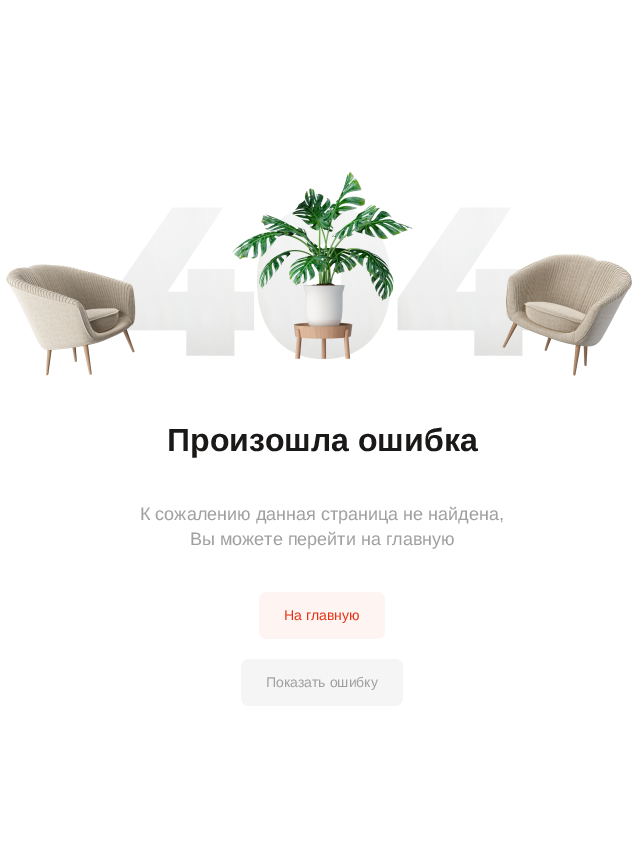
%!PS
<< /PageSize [644 851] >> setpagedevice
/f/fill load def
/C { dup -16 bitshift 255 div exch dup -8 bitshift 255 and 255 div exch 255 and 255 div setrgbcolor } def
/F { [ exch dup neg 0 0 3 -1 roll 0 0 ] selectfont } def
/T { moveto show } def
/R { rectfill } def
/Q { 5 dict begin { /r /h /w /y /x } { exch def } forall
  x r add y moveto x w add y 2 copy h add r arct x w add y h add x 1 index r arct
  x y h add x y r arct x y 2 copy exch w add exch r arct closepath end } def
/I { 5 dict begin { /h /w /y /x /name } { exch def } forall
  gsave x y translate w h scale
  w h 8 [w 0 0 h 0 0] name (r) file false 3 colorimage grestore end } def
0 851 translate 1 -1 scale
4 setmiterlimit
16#FFFFFF C
0 0 644 851 R
(1.rgb) 6 171 627 205 I
/LiberationSans-Bold 32 F
16#1B1918 C
(Произошла ошибка) 167 451 T
/LiberationSans-Regular 18 F
16#A0A0A0 C
(К сожалению данная страница не найдена,) 140 520 T
(Вы можете перейти на главную) 190 545 T
16#FEF5F3 C
259 592 126 47 8 Q f
/LiberationSans-Regular 14 F
16#E63114 C
(На главную) 284 620 T
16#F5F5F5 C
241 659 162 47 8 Q f
16#A0A0A0 C
(Показать ошибку) 266 687 T
showpage
